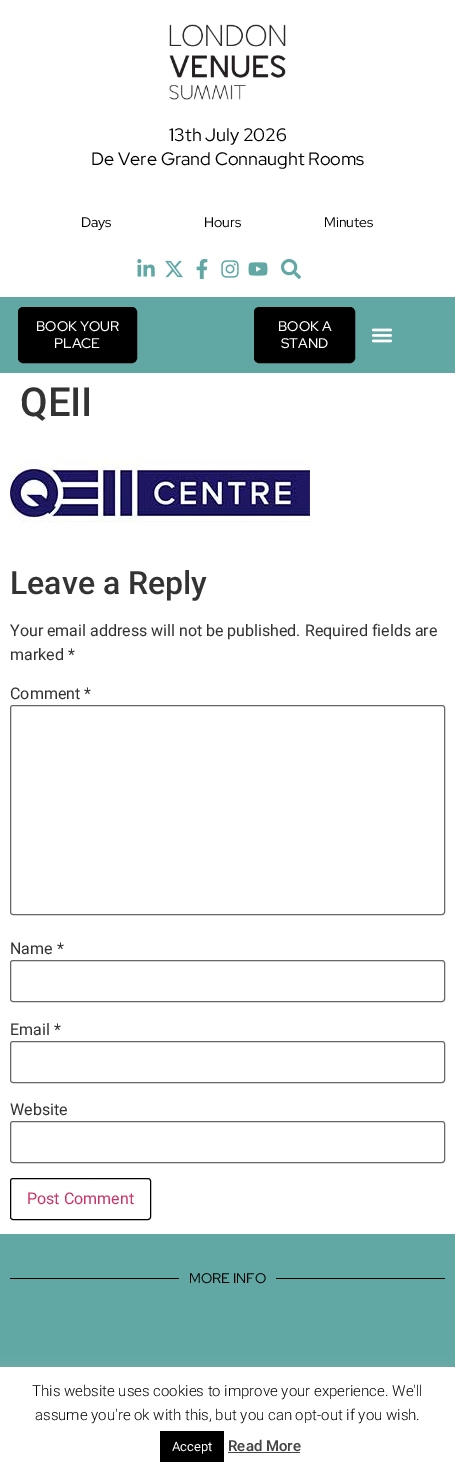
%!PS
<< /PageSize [455 1474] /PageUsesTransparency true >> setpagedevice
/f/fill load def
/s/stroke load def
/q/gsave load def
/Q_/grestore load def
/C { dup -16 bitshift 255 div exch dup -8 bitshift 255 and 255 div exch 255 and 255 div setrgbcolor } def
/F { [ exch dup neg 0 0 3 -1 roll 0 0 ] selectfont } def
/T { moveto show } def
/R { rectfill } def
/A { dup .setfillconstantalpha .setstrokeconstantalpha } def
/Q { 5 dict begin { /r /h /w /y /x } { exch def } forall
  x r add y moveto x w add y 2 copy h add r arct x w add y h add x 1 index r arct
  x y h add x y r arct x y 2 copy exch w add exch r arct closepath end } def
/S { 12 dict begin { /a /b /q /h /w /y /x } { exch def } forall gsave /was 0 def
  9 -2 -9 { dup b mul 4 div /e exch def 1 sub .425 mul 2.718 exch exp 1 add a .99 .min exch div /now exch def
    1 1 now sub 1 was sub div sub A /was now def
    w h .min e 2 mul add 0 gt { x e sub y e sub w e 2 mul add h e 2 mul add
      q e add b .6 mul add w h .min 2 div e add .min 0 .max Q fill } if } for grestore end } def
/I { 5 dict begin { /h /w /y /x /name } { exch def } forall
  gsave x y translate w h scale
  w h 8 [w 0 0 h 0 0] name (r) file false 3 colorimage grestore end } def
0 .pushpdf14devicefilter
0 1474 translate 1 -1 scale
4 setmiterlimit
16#FFFFFF C
0 0 455 1474 R
(1.rgb) 169 24 117 76 I
/RedHatDisplay-Regular 18 F
16#000000 C
(13th July 2026) 169 141 T
(De Vere Grand Connaught Rooms) 91 165 T
/RedHatDisplay-Regular 14 F
(Days) 81 227 T
(Hours) 204 227 T
(Minutes) 324 227 T
(2.rgb) 137 259 18 18 I
(3.rgb) 165 260 18 18 I
(4.rgb) 196 259 12 20 I
(5.rgb) 221 260 18 18 I
(6.rgb) 248 262 20 14 I
(7.rgb) 281 259 20 20 I
16#61A8A4 C
0 297 455 76 R
16#000000 C
18.5 307.5 118 55 4.5 Q q f Q_
s
/RedHatDisplay-Medium 14 F
16#FFFFFF C
(BOOK YOUR) 36 331 T
(PLACE) 54 348 T
16#000000 C
254.5 307.5 100 55 4.5 Q q f Q_
s
16#FFFFFF C
(BOOK A) 278 331 T
(STAND) 281 348 T
(8.rgb) 371 328 21 15 I
/Roboto-Medium 40 F
16#333333 C
(QEII) 20 416 T
(9.rgb) 10 459 300 64 I
/Roboto-Medium 32 F
(Leave a Reply) 10 594 T
/Roboto-Regular 16 F
(Your email address will not be published. Required fields are) 10 636 T
(marked *) 10 660 T
(Comment *) 10 699 T
16#666666 C
10.5 705.5 434 209 2.5 Q s
16#333333 C
(Name *) 10 954 T
16#666666 C
10.5 960.5 434 41 2.5 Q s
16#333333 C
(Email *) 10 1035 T
16#666666 C
10.5 1041.5 434 41 2.5 Q s
16#333333 C
(Website) 10 1115 T
16#666666 C
10.5 1121.5 434 41 2.5 Q s
16#000000 C
10.5 1178.5 140 41 2.5 Q s
16#CC3366 C
(Post Comment) 27 1204 T
16#61A8A4 C
0 1234 455 133 R
16#000000 C
10 1278 169 1 R
/RedHatDisplay-Regular 14 F
(MORE INFO) 189 1283 T
276 1278 169 1 R
16#ACABAB C
0 1366 455 107 0 5 .3 S
16#FFFFFF C
0 1367 455 107 R
/Roboto-Light 15 F
16#000000 C
(This website uses cookies to improve your experience. We'll) 32 1396 T
(assume you're ok with this, but you can opt-out if you wish.) 35 1420 T
160 1431 64 31 R
/Roboto-Regular 13 F
16#FFFFFF C
(Accept) 172 1451 T
/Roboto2-Medium 15 F
16#444444 C
(Read More) 228 1451 T
228 1452 72 1 R
.poppdf14devicefilter showpage
